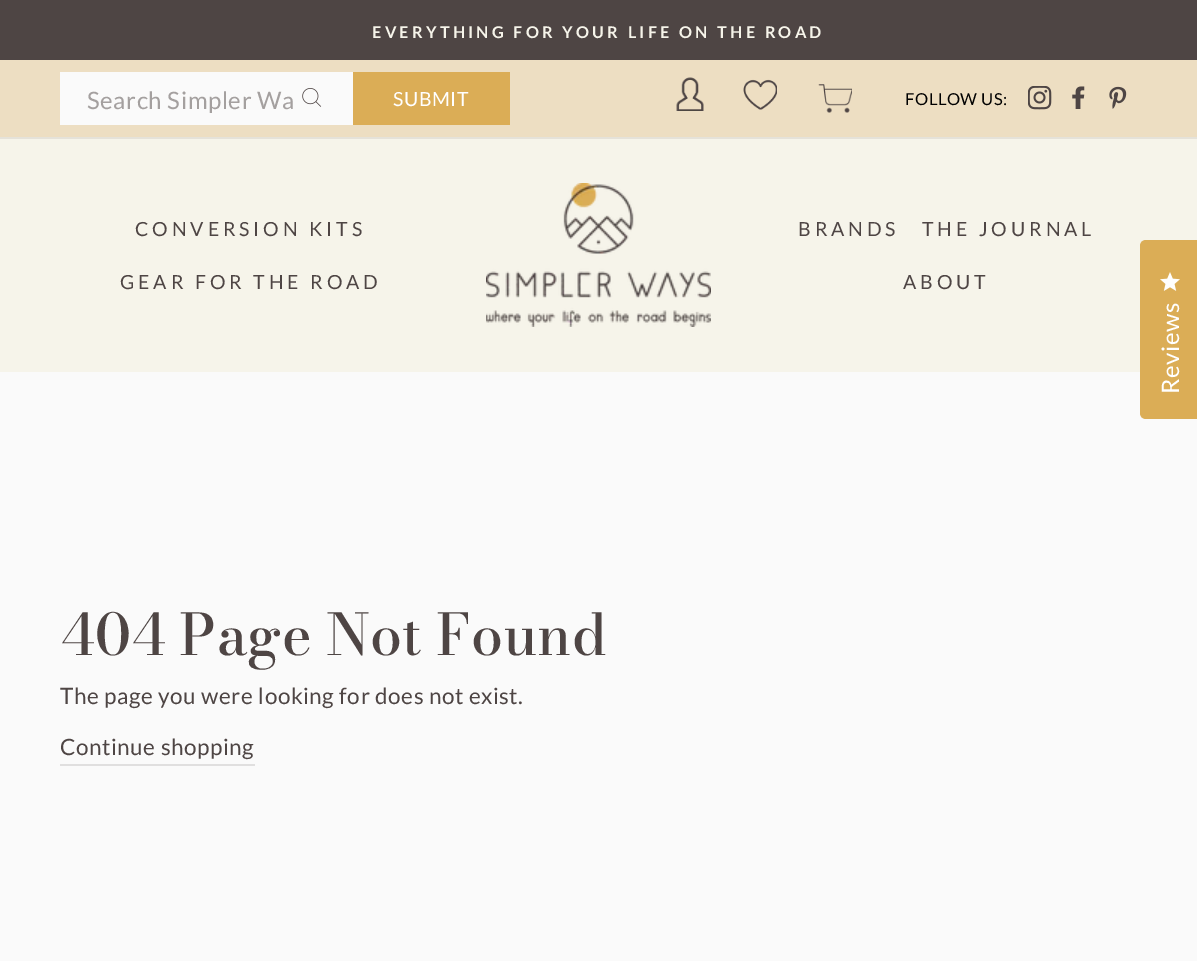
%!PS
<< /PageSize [1197 961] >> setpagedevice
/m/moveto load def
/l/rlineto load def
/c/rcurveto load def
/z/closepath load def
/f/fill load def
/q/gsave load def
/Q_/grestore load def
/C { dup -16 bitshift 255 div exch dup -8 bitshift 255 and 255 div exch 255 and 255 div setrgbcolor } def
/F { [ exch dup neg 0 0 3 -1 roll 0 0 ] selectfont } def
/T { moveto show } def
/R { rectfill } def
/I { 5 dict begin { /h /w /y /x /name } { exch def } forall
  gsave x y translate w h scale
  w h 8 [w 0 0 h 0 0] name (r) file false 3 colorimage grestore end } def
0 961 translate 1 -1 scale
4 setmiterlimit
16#FAFAFA C
0 0 1197 961 R
16#4E4544 C
0 0 1197 60 R
/Lato-Bold 16.25 F
16#F6F4EA C
372 38 m 3.25 0 (EVERYTHING FOR YOUR LIFE ON THE ROAD) ashow
16#EDDEC2 C
0 60 1197 77 R
16#FAFAFA C
60 72 293 53 R
/Lato-Regular 24 F
16#A4A09F C
87 109 m .6 0 (Search Simpler Wa) ashow
(1.rgb) 302 88 20 19 I
16#DBAD56 C
353 72 157 53 R
/Lato-Regular 19.5 F
16#FFFFFF C
393 106 m .55 0 (SUBMIT) ashow
(2.rgb) 676 77 28 34 I
(3.rgb) 743 79 34 31 I
(4.rgb) 818 84 34 29 I
/Lato-Regular 16.5 F
16#000000 C
905 105 m .55 0 (FOLLOW US:) ashow
(5.rgb) 1028 86 24 24 I
(6.rgb) 1072 86 13 23 I
(7.rgb) 1109 86 18 23 I
16#F6F4EA C
0 139 1197 233 R
16#E5E2D9 C
0 137 1197 2 R
/Lato-Regular 19.5 F
16#4E4544 C
135 236 m 3.9 0 (CONVERSION KITS) ashow
120 289 m 3.9 0 (GEAR FOR THE ROAD) ashow
(8.rgb) 486 183 225 144 I
798 236 m 3.9 0 (BRANDS) ashow
922 236 m 3.9 0 (THE JOURNAL) ashow
903 289 m 3.9 0 (ABOUT) ashow
/BodoniModa-Medium 57 F
(404 Page Not Found) 60 655 T
/Lato-Regular 22.5 F
60 704 m .55 0 (The page you were looking for does not exist.) ashow
16#E0DFDF C
60 764 195 2 R
16#4E4544 C
60 755 m .55 0 (Continue shopping) ashow
16#DBAD56 C
1146 240 m 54 0 l 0 179 l -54 0 l -3.5 0 -6 -2.5 -6 -6 c 0 -167 l 0 -3.5 2.5 -6 6 -6 c z f
(9.rgb) 1160 272 20 19 I
/Lato-Regular 24 F
16#FFFFFF C
q 1179 394 translate -89.9 rotate 0 0 m .55 0 (Reviews) ashow Q_
showpage
